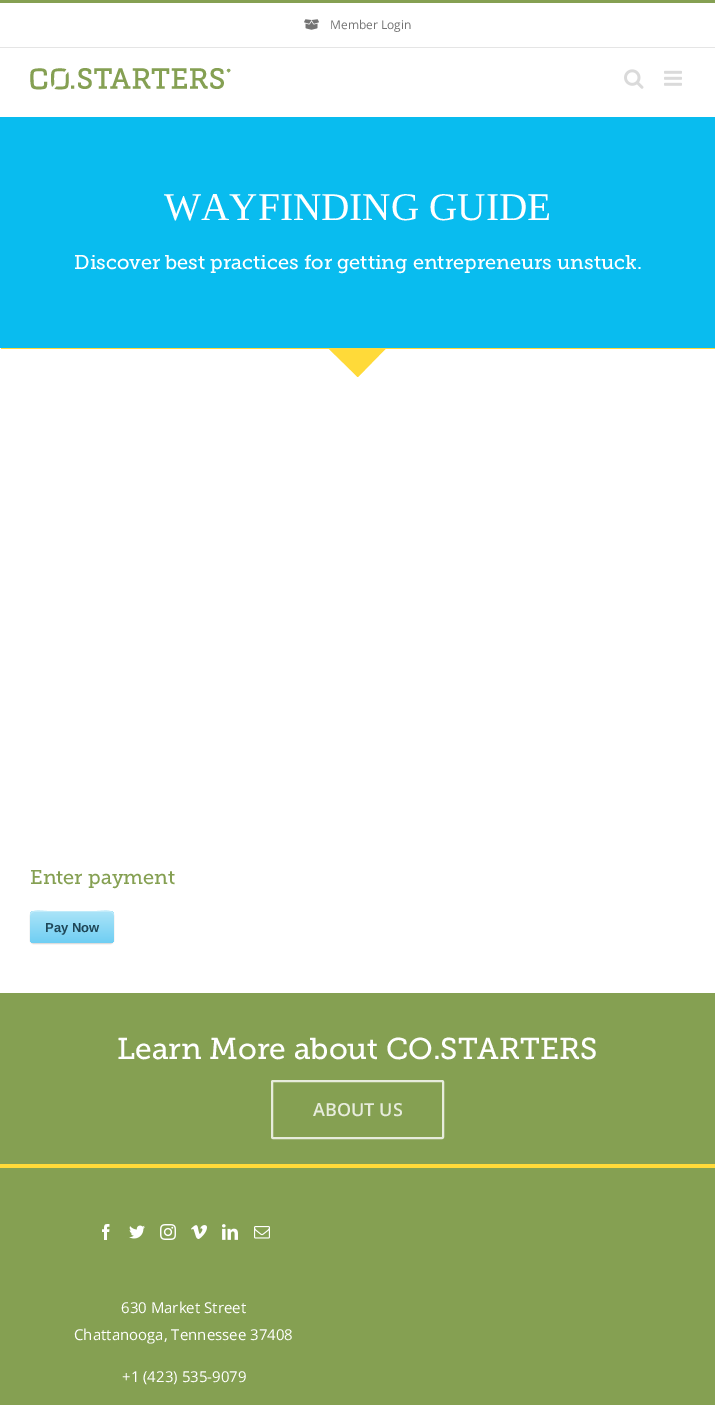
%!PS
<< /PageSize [715 1405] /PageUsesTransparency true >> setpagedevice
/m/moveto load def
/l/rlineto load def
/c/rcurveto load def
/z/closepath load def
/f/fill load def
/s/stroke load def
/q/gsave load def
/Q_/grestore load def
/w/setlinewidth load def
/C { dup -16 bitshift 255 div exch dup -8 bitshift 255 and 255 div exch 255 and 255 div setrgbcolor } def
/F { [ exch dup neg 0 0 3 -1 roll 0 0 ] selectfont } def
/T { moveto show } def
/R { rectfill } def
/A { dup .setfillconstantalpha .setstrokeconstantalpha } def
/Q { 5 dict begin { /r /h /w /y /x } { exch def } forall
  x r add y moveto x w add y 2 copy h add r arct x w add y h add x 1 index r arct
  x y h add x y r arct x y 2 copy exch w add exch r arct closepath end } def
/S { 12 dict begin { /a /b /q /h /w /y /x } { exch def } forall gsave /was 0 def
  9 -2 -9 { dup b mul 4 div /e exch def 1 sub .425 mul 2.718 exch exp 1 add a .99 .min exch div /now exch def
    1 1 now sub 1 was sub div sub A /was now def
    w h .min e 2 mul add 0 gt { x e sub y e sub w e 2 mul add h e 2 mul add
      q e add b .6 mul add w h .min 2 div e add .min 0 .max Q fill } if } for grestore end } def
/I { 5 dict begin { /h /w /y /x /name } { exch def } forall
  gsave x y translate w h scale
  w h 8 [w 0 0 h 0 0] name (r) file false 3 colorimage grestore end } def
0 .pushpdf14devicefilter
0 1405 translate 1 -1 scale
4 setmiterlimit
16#FFFFFF C
0 0 715 1405 R
16#85A052 C
0 0 715 3 R
16#E5E5E5 C
0 47 715 1 R
(1.rgb) 304 19 15 11 I
/OpenSans-Regular 12 F
16#747474 C
(Member Login) 330 29 T
(2.rgb) 30 68 201 22 I
(3.rgb) 624 69 20 20 I
(4.rgb) 664 70 18 16 I
16#09BCEF C
0 117 715 231 R
/LiberationSerif-Regular 39.25 F
16#FFFFFF C
(WAYFINDING GUIDE) 164 220 T
/MuseoSlab-Regular 19.9 F
(Discover best practices for getting entrepreneurs unstuck.) 74 269 T
16#FFDA39 C
1 348 714 1 R
328 348 m 58 0 l -28 29 l z f
357 376 m 28 -28 l 1 .5 l -28.5 28.5 l z f
329 348.5 m 1 -.5 l 28 28 l -.5 1 l z f
16#85A052 C
(Enter payment) 30 884 T
16#D6D6D6 C
30 912 84 32 4 .5 1 S
q 30 911 84 32 4 Q clip newpath
<< /ShadingType 2 /ColorSpace /DeviceRGB /Coords [30 911 30 943] /Extend [true true] /Function << /FunctionType 2 /Domain [0 1] /C0 [.671 .894 .973] /C1 [.435 .808 .953] /N 1 >> >> shfill Q_
16#C0EBFA C
34 912 m 76 0 l 2 0 4 2 4 4 c 0 -8 -12 -5 -17 -5 c -50 0 l -5 0 -17 -3 -17 5 c 0 -2 2 -4 4 -4 c z f
/LiberationSans-Bold 13 F
16#1E4657 C
(Pay Now) 45 932 T
16#85A052 C
0 993 715 171 R
/MuseoSlab-Regular 30 F
16#FFFFFF C
(Learn More about CO.STARTERS) 117 1059 T
16#E7ECDC C
2 w
272 1081 171 57 1 Q s
/OpenSans-SemiBold 18 F
(ABOUT US) 313 1116 T
16#85A052 C
0 1168 715 237 R
16#FFDA39 C
0 1164 715 4 R
(5.rgb) 102 1224 8 16 I
(6.rgb) 129 1225 16 14 I
(7.rgb) 160 1224 16 16 I
(8.rgb) 191 1225 16 14 I
(9.rgb) 222 1224 16 16 I
(10.rgb) 254 1226 16 13 I
/OpenSans-Regular 15 F
16#FFFFFF C
(630 Market Street) 121 1313 T
(Chattanooga, Tennessee 37408) 74 1340 T
(+1 \(423\) 535-9079) 122 1382 T
.poppdf14devicefilter showpage
